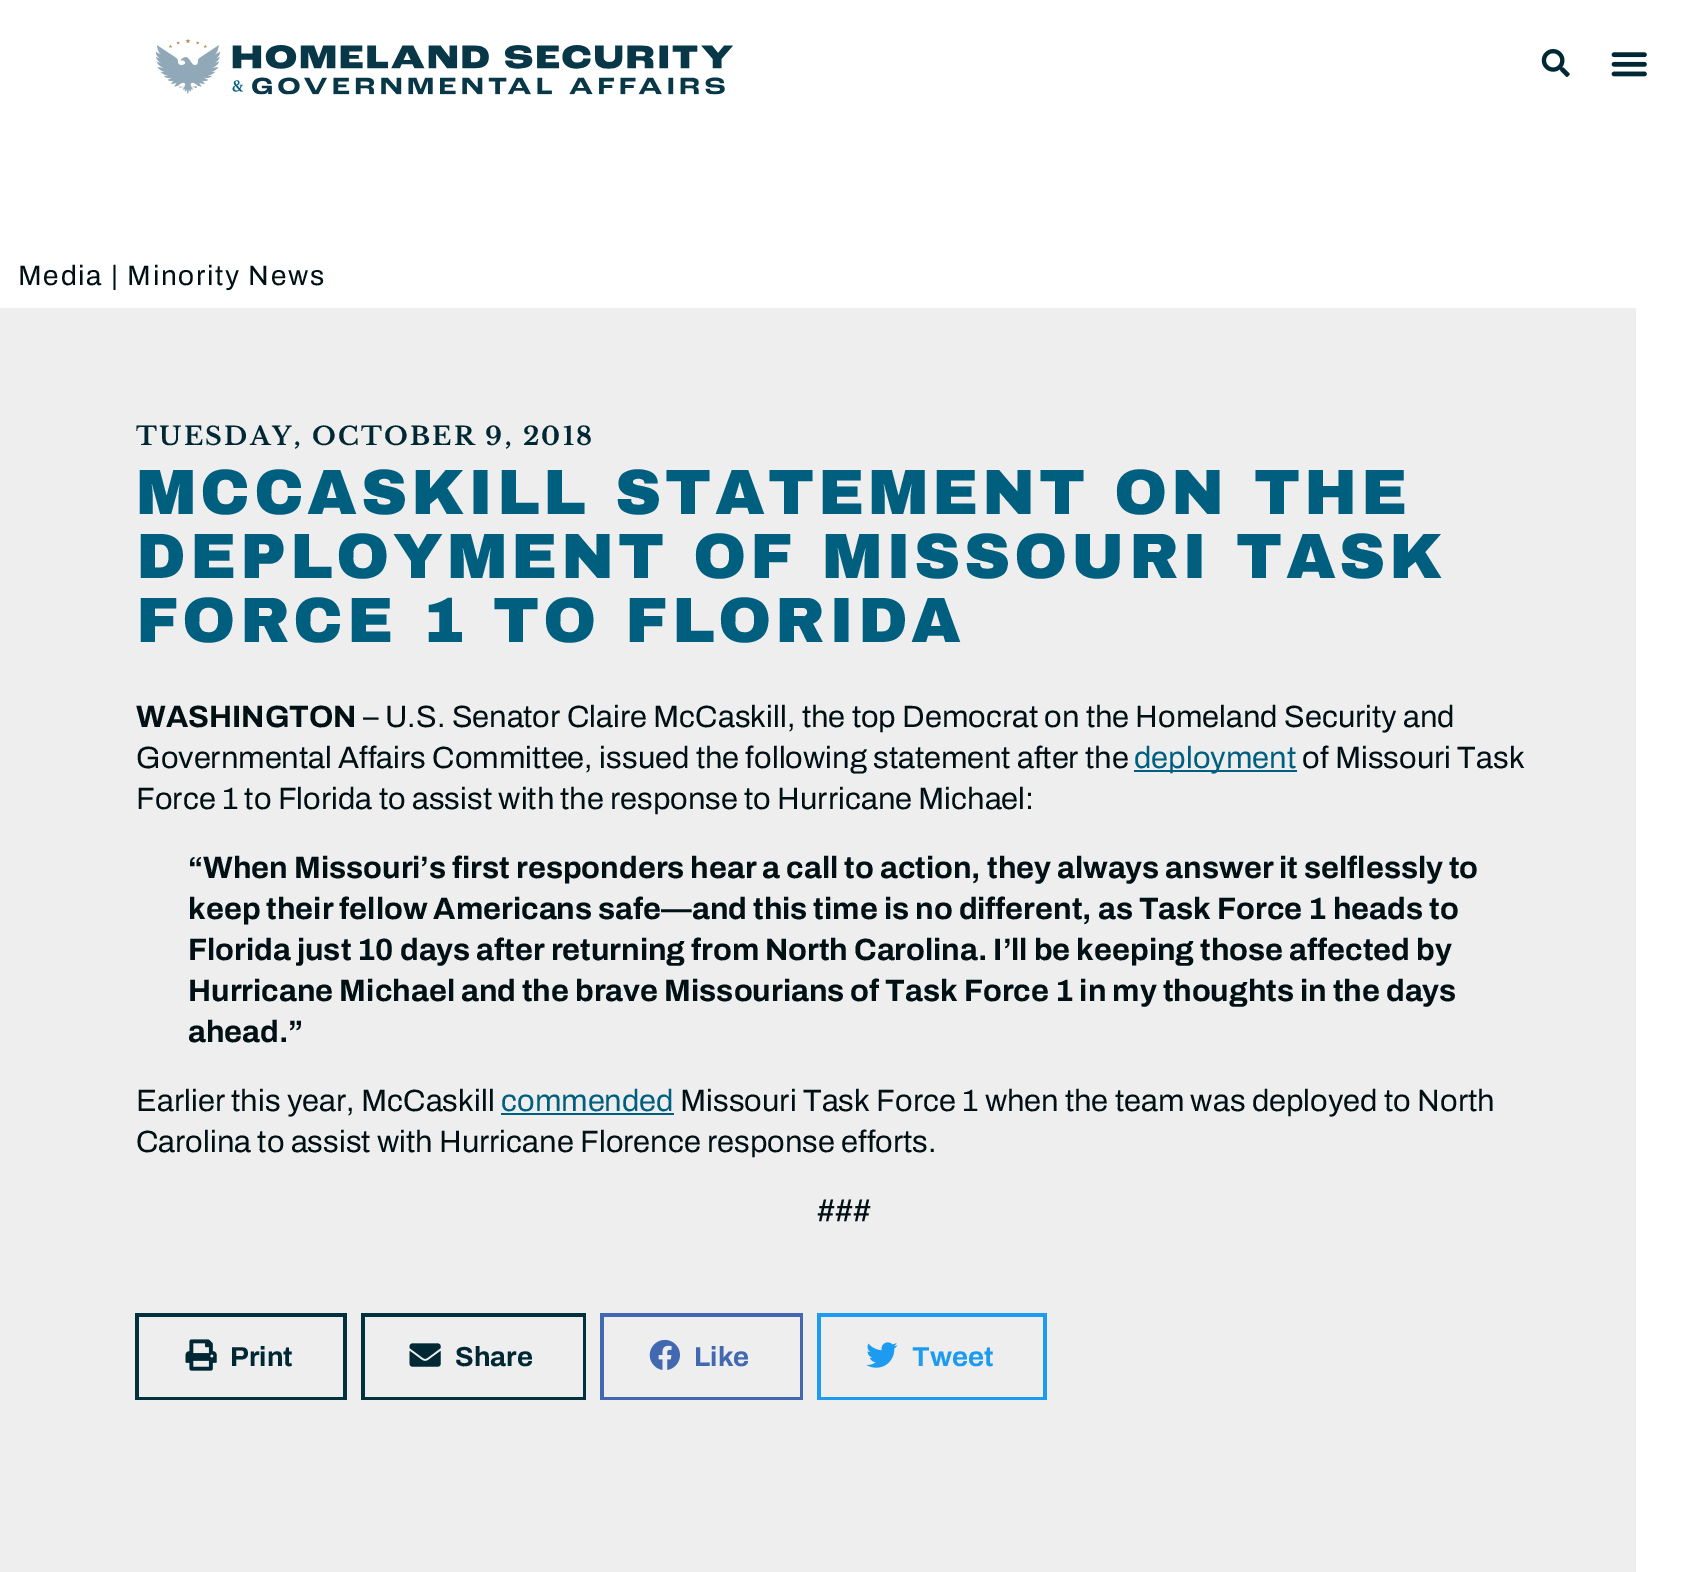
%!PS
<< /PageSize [1687 1572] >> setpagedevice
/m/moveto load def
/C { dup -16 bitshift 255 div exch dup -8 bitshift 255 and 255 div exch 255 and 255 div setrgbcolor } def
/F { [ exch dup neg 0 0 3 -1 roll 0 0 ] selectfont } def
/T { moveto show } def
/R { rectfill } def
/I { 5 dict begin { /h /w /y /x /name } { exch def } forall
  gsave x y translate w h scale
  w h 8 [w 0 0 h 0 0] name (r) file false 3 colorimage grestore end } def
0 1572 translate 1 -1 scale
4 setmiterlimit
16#FFFFFF C
0 0 1687 1572 R
(1.rgb) 156 39 577 56 I
(2.rgb) 1541 49 29 28 I
(3.rgb) 1611 52 36 25 I
/Archivo-Regular 28 F
16#001014 C
18 285 m 1.75 0 (Media | Minority News) ashow
16#EEEEEE C
0 308 1636 1264 R
/LibreBaskerville-Bold 25.25 F
16#002834 C
136 445 m 2.25 0 (TUESDAY, OCTOBER 9, 2018) ashow
/ArchivoBlack-Black 64.1 F
16#005F7F C
136 514 m 3.7 0 (MCCASKILL STATEMENT ON THE) ashow
136 578 m 3.7 0 (DEPLOYMENT OF MISSOURI TASK) ashow
136 642 m 3.7 0 (FORCE 1 TO FLORIDA) ashow
/Archivo-Bold 30.8 F
16#001014 C
(WASHINGTON) 136 727 T
/Archivo-Regular 30.8 F
(– U.S. Senator Claire McCaskill, the top Democrat on the Homeland Security and) 363 727 T
(Governmental Affairs Committee, issued the following statement after the) 136 768 T
16#005F7F C
1134 770 163 2 R
(deployment) 1134 768 T
16#001014 C
(of Missouri Task) 1302 768 T
(Force 1 to Florida to assist with the response to Hurricane Michael:) 136 809 T
/Archivo-Bold 30.8 F
(“When Missouri’s first responders hear a call to action, they always answer it selflessly to) 188 878 T
(keep their fellow Americans safe—and this time is no different, as Task Force 1 heads to) 188 919 T
(Florida just 10 days after returning from North Carolina. I’ll be keeping those affected by) 188 960 T
(Hurricane Michael and the brave Missourians of Task Force 1 in my thoughts in the days) 188 1001 T
(ahead.”) 188 1042 T
/Archivo-Regular 30.8 F
(Earlier this year, McCaskill) 136 1111 T
16#005F7F C
(commended) 501 1111 T
501 1113 173 2 R
16#001014 C
(Missouri Task Force 1 when the team was deployed to North) 680 1111 T
(Carolina to assist with Hurricane Florence response efforts.) 136 1152 T
(###) 817 1221 T
16#00313D C
135 1313 212 4 R
343 1313 4 87 R
135 1397 212 3 R
135 1313 4 87 R
(4.rgb) 185 1339 32 32 I
/Archivo-Bold 27.5 F
16#002834 C
(Print) 230 1366 T
16#00313D C
361 1313 225 4 R
583 1313 3 87 R
361 1397 225 3 R
361 1313 4 87 R
(5.rgb) 409 1343 32 24 I
16#002834 C
(Share) 455 1366 T
16#4268B2 C
600 1313 203 4 R
800 1313 3 87 R
600 1397 203 3 R
600 1313 4 87 R
(6.rgb) 649 1339 31 31 I
(Like) 694 1366 T
16#1D9BF0 C
817 1313 230 4 R
1043 1313 4 87 R
817 1397 230 3 R
817 1313 4 87 R
(7.rgb) 866 1342 32 26 I
(Tweet) 912 1366 T
showpage
